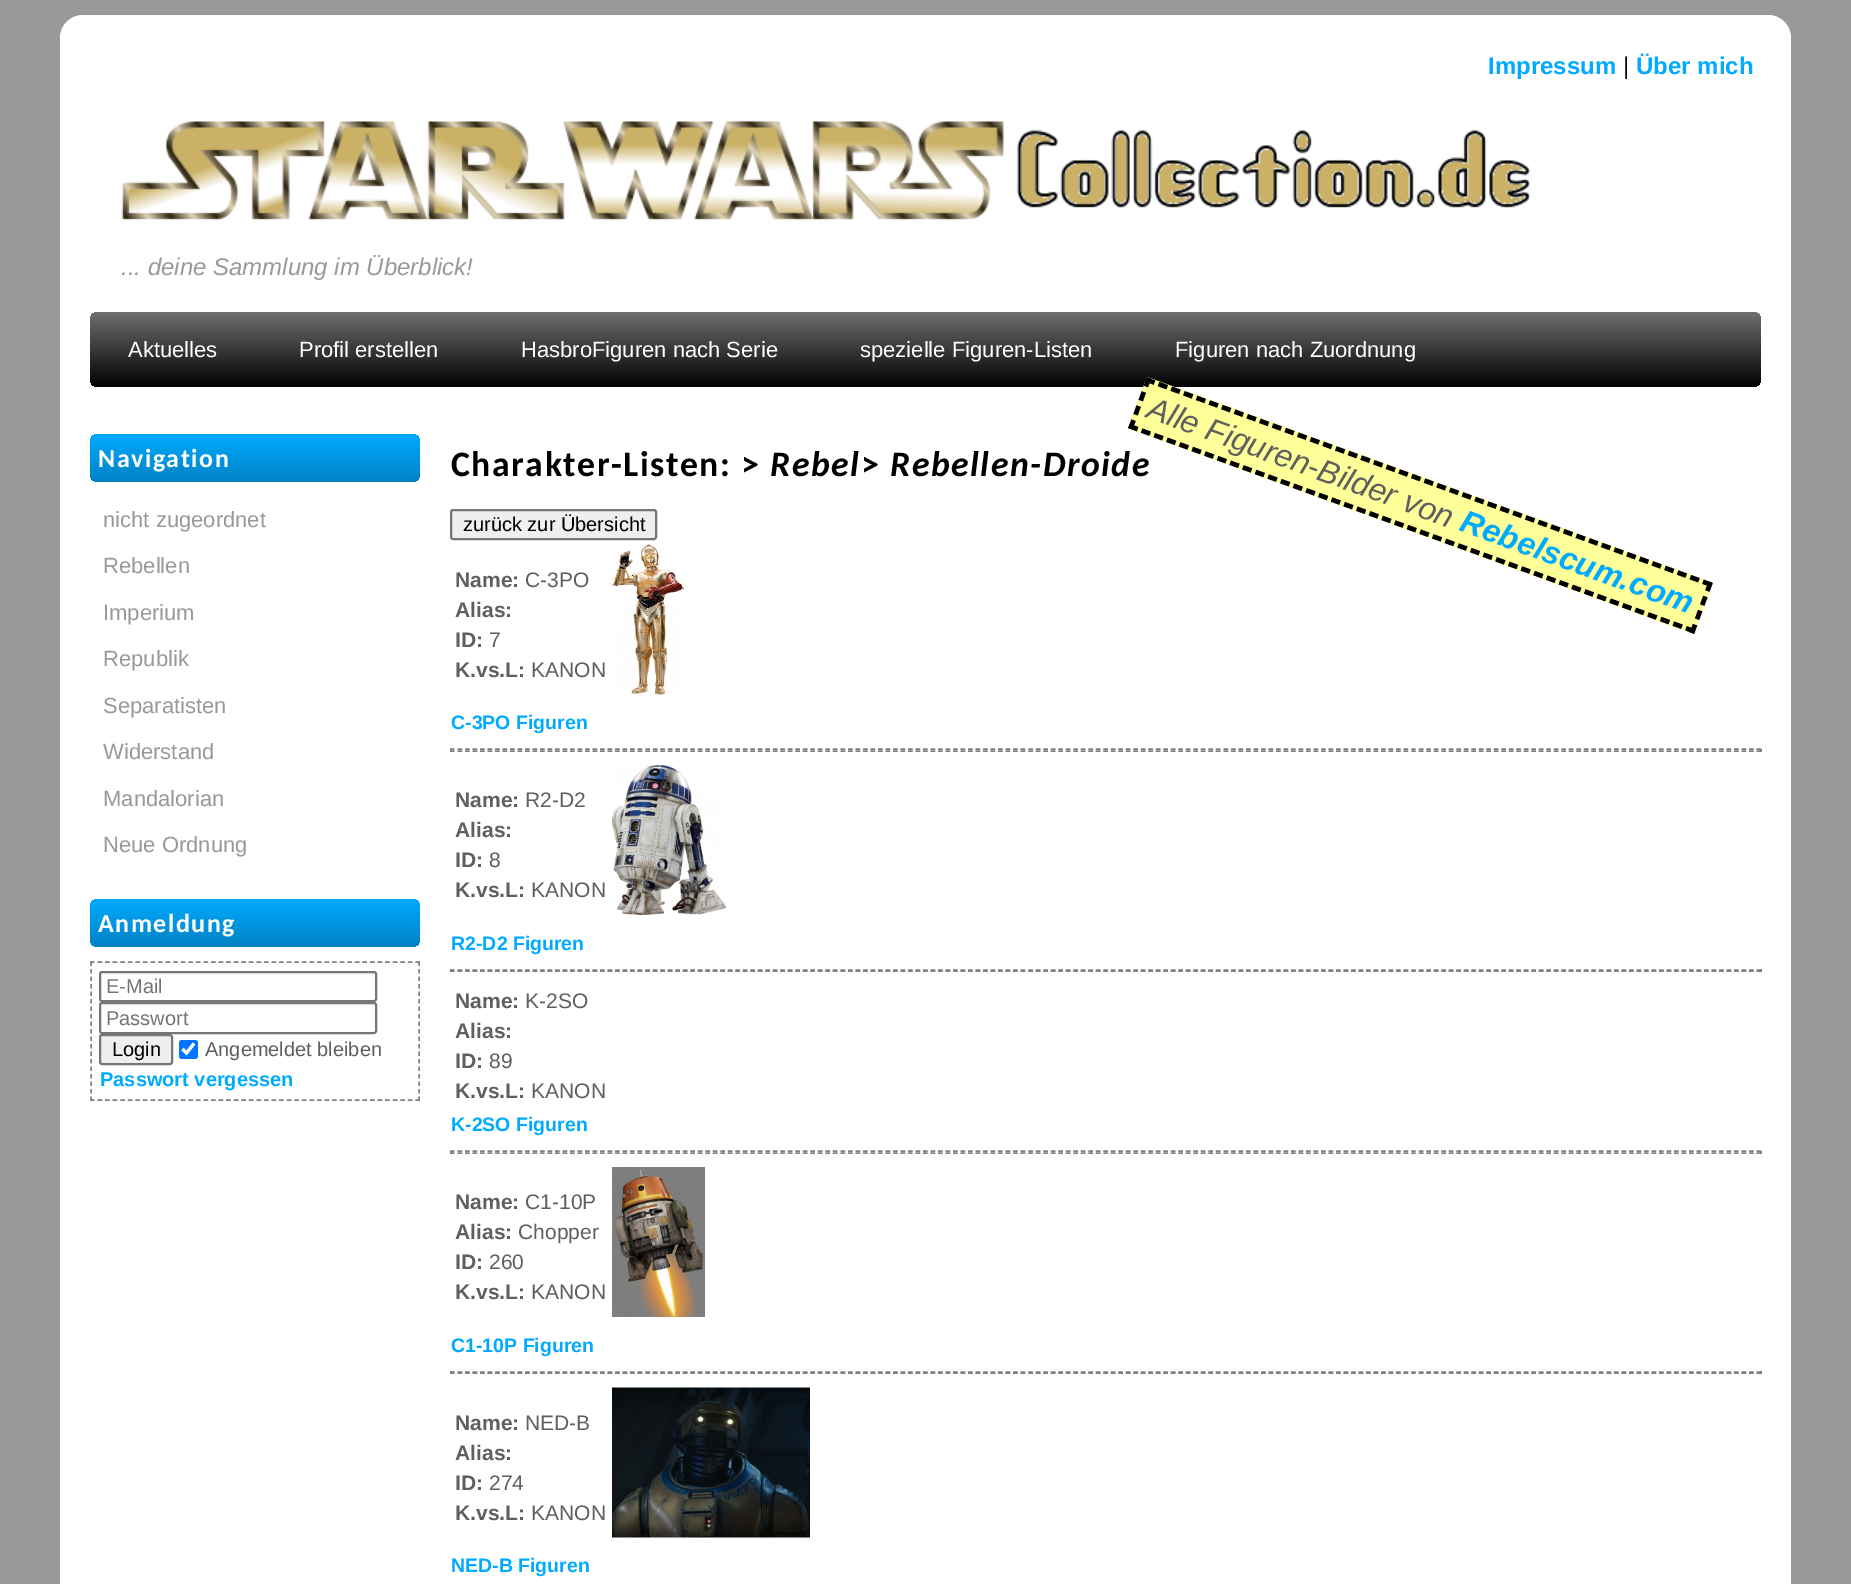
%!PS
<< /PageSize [1851 1584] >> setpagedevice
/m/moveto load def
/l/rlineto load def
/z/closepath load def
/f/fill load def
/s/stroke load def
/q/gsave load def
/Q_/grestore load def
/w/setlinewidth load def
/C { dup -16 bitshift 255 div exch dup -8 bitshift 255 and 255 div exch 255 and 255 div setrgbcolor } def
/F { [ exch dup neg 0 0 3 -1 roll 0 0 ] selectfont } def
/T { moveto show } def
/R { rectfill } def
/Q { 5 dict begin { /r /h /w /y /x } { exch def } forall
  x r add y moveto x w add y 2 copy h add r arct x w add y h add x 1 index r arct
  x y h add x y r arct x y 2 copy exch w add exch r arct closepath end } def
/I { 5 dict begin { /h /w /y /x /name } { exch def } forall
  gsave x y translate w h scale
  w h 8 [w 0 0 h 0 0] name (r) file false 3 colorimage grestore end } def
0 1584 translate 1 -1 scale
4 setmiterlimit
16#999999 C
0 0 1851 1584 R
16#FFFFFF C
60 15 1731 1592 23 Q f
/LiberationSans-Bold 24 F
16#00AAFF C
(Impressum) 1488 74 T
/LiberationSans-Regular 24 F
16#000000 C
(|) 1623 74 T
/LiberationSans-Bold 24 F
16#00AAFF C
(Über mich) 1636 74 T
(1.rgb) 121 120 1410 100 I
/LiberationSans-Italic 24 F
16#999999 C
(... deine Sammlung im Überblick!) 121 275 T
q 90 312 1671 75 8 Q clip newpath
<< /ShadingType 2 /ColorSpace /DeviceRGB /Coords [926 312 926 387] /Extend [true true] /Function << /FunctionType 2 /Domain [0 1] /C0 [.439 .439 .439] /C1 [0 0 0] /N 1 >> >> shfill Q_
/LiberationSans-Regular 22 F
16#FFFFFF C
(Aktuelles) 128 357 T
(Profil erstellen) 299 357 T
(HasbroFiguren nach Serie) 521 357 T
(spezielle Figuren-Listen) 860 357 T
(Figuren nach Zuordnung) 1175 357 T
q 90 434 330 48 8 Q clip newpath
<< /ShadingType 2 /ColorSpace /DeviceRGB /Coords [255 434 255 482] /Extend [true true] /Function << /FunctionType 2 /Domain [0 1] /C0 [0 .667 1] /C1 [0 .51 .765] /N 1 >> >> shfill Q_
/Carlito-Bold 26 F
98 467 m 1.5 0 (Navigation) ashow
/LiberationSans-Regular 22 F
16#999999 C
(nicht zugeordnet) 103 527 T
(Rebellen) 103 573 T
(Imperium) 103 620 T
(Republik) 103 666 T
(Separatisten) 103 713 T
(Widerstand) 103 759 T
(Mandalorian) 103 806 T
(Neue Ordnung) 103 852 T
q 90 899 330 48 8 Q clip newpath
<< /ShadingType 2 /ColorSpace /DeviceRGB /Coords [255 899 255 947] /Extend [true true] /Function << /FunctionType 2 /Domain [0 1] /C0 [0 .667 1] /C1 [0 .51 .765] /N 1 >> >> shfill Q_
/Carlito-Bold 26 F
16#FFFFFF C
98 932 m 1.5 0 (Anmeldung) ashow
16#808080 C
1.5 w
[4.5 3.07] 0 setdash
90 962 m 330 0 l s
[4.5 3] 0 setdash
419 961.5 m 0 139.5 l s
[4.5 3.07] 0 setdash
90 1100 m 330 0 l s
[4.5 3] 0 setdash
91 961.5 m 0 139.5 l s
16#767676 C
2 w
[] 0 setdash
100 972 276 29 2 Q s
/LiberationSans-Regular 20 F
16#757575 C
(E-Mail) 106 993 T
16#767676 C
100 1003 276 30 2 Q s
16#757575 C
(Passwort) 106 1025 T
16#EFEFEF C
100 1035 72 29 2 Q q f Q_
16#767676 C
s
16#000000 C
(Login) 112 1056 T
16#0075FF C
179 1040 19 19 3 Q f
16#FFFFFF C
3.1 w
182.5 1049 m 4 4 l 7.5 -9.5 l s
16#5F5F5F C
(Angemeldet bleiben) 205 1056 T
/LiberationSans-Bold 20 F
16#00AAFF C
(Passwort vergessen) 100 1086 T
/Carlito-Bold 35.75 F
16#000000 C
451 476 m 1.5 0 (Charakter-Listen: >) ashow
/Carlito-BoldItalic 35.75 F
770 476 m 1.5 0 (Rebel) ashow
/Carlito-Bold 35.75 F
861 476 m 1.5 0 (>) ashow
/Carlito-BoldItalic 35.75 F
890 476 m 1.5 0 (Rebellen-Droide) ashow
16#FFFF99 C
1147 377 m 566 206 l -19 51 l -566 -206 l z f
16#000000 C
4.5 w
[9 4.47] 0 setdash
1146 379.5 m 566 205.5 l s
[9 6] 0 setdash
1710.5 582.5 m -18.5 50.5 l s
[9 4.47] 0 setdash
1129 426 m 566 205.5 l s
[9 6] 0 setdash
1149 378 m -18.5 50.5 l s
/LiberationSans-Italic 32 F
16#5F5F5F C
q 1145 417 translate 20 rotate 0 0 m (Alle Figuren-Bilder von) show Q_
/LiberationSans-BoldItalic 32 F
16#00AAFF C
q 1458 530 translate 20 rotate 0 0 m (Rebelscum.com) show Q_
16#EFEFEF C
451 510 205 29 2 Q q f Q_
16#767676 C
2 w
[] 0 setdash
s
/LiberationSans-Regular 20 F
16#000000 C
(zurück zur Übersicht) 463 531 T
/LiberationSans-Bold 21 F
16#5F5F5F C
(Name:) 455 587 T
/LiberationSans-Regular 21 F
(C-3PO) 525 587 T
/LiberationSans-Bold 21 F
(Alias:) 455 617 T
(ID:) 455 647 T
/LiberationSans-Regular 21 F
(7) 489 647 T
/LiberationSans-Bold 21 F
(K.vs.L:) 455 677 T
/LiberationSans-Regular 21 F
(KANON) 531 677 T
(2.rgb) 612 544 72 151 I
/LiberationSans-Bold 19.5 F
16#00AAFF C
(C-3PO Figuren) 451 729 T
16#808080 C
1.5 w
[4.5 3.01] 0 setdash
450 749 m 1311 0 l s
1760 749 2 3 R
450 751 m 1311 0 l s
450 749 2 3 R
/LiberationSans-Bold 21 F
16#5F5F5F C
(Name:) 455 807 T
/LiberationSans-Regular 21 F
(R2-D2) 525 807 T
/LiberationSans-Bold 21 F
(Alias:) 455 837 T
(ID:) 455 867 T
/LiberationSans-Regular 21 F
(8) 489 867 T
/LiberationSans-Bold 21 F
(K.vs.L:) 455 897 T
/LiberationSans-Regular 21 F
(KANON) 531 897 T
(3.rgb) 612 765 114 150 I
/LiberationSans-Bold 19.5 F
16#00AAFF C
(R2-D2 Figuren) 451 950 T
16#808080 C
450 970 m 1311 0 l s
1760 969 2 3 R
450 971 m 1311 0 l s
450 969 2 3 R
/LiberationSans-Bold 21 F
16#5F5F5F C
(Name:) 455 1008 T
/LiberationSans-Regular 21 F
(K-2SO) 525 1008 T
/LiberationSans-Bold 21 F
(Alias:) 455 1038 T
(ID:) 455 1068 T
/LiberationSans-Regular 21 F
(89) 489 1068 T
/LiberationSans-Bold 21 F
(K.vs.L:) 455 1098 T
/LiberationSans-Regular 21 F
(KANON) 531 1098 T
/LiberationSans-Bold 19.5 F
16#00AAFF C
(K-2SO Figuren) 451 1131 T
16#808080 C
450 1151 m 1311 0 l s
1760 1151 2 3 R
450 1153 m 1311 0 l s
450 1151 2 3 R
/LiberationSans-Bold 21 F
16#5F5F5F C
(Name:) 455 1209 T
/LiberationSans-Regular 21 F
(C1-10P) 525 1209 T
/LiberationSans-Bold 21 F
(Alias:) 455 1239 T
/LiberationSans-Regular 21 F
(Chopper) 518 1239 T
/LiberationSans-Bold 21 F
(ID:) 455 1269 T
/LiberationSans-Regular 21 F
(260) 489 1269 T
/LiberationSans-Bold 21 F
(K.vs.L:) 455 1299 T
/LiberationSans-Regular 21 F
(KANON) 531 1299 T
(4.rgb) 612 1167 93 150 I
/LiberationSans-Bold 19.5 F
16#00AAFF C
(C1-10P Figuren) 451 1352 T
16#808080 C
450 1372 m 1311 0 l s
1760 1371 2 3 R
450 1373 m 1311 0 l s
450 1371 2 3 R
/LiberationSans-Bold 21 F
16#5F5F5F C
(Name:) 455 1430 T
/LiberationSans-Regular 21 F
(NED-B) 525 1430 T
/LiberationSans-Bold 21 F
(Alias:) 455 1460 T
(ID:) 455 1490 T
/LiberationSans-Regular 21 F
(274) 489 1490 T
/LiberationSans-Bold 21 F
(K.vs.L:) 455 1520 T
/LiberationSans-Regular 21 F
(KANON) 531 1520 T
(5.rgb) 612 1387 198 151 I
/LiberationSans-Bold 19.5 F
16#00AAFF C
(NED-B Figuren) 451 1572 T
showpage
